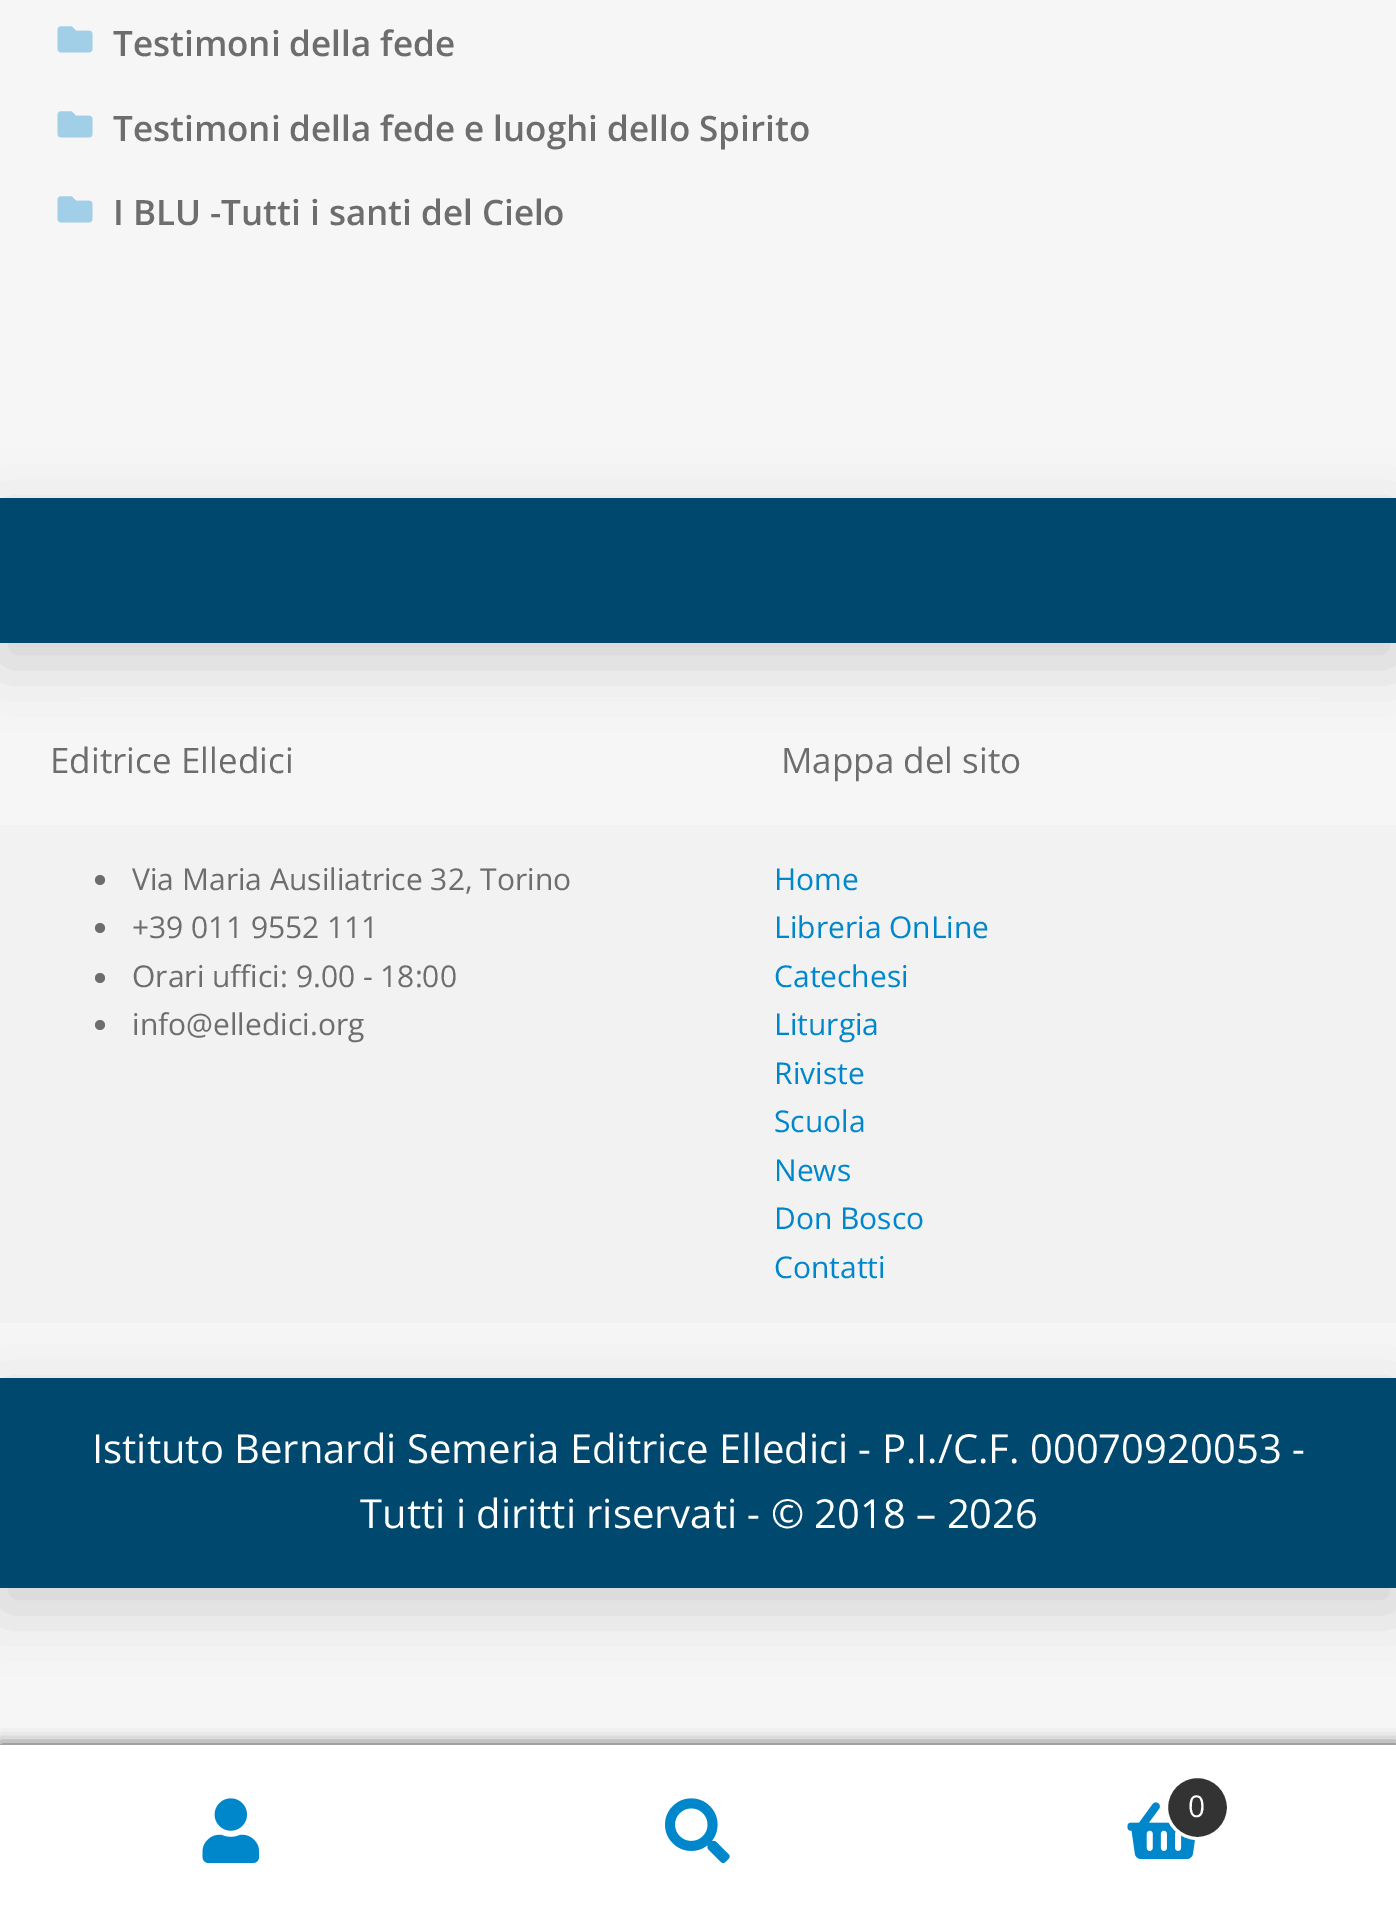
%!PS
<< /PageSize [1396 1916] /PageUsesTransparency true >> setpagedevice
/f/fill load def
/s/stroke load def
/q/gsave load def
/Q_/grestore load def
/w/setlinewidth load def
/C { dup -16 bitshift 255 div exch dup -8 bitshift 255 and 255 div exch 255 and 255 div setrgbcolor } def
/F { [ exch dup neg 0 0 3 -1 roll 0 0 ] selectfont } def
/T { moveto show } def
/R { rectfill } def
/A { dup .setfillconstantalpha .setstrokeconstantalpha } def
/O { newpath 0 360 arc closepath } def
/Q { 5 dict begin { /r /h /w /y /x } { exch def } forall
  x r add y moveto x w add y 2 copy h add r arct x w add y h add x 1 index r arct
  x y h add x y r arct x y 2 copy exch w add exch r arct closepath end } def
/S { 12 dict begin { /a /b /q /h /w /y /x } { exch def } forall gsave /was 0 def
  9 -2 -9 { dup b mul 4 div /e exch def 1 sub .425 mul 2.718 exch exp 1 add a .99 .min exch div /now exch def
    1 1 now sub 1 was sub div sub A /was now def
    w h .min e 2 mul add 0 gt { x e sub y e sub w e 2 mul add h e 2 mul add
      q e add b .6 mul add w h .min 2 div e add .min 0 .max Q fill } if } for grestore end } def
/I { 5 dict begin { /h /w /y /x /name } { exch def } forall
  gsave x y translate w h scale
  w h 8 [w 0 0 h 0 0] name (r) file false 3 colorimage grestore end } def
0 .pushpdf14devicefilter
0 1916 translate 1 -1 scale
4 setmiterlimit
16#F6F6F6 C
0 0 1396 1916 R
(1.rgb) 57 26 36 27 I
/OpenSans-SemiBold 35 F
16#6D6D6D C
(Testimoni della fede) 113 56 T
(1.rgb) 57 111 36 27 I
(Testimoni della fede e luoghi dello Spirito) 113 141 T
(1.rgb) 57 196 36 27 I
(I BLU -Tutti i santi del Cielo) 113 225 T
16#000000 C
0 518 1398 145 0 31 .15 S
16#00486E C
0 498 1396 145 R
16#F4F4F4 C
78 698 1242 1 R
/OpenSans-Regular 35 F
16#6D6D6D C
(Editrice Elledici) 50 773 T
(Mappa del sito) 781 773 T
16#F2F2F2 C
0 825 1396 498 R
16#6D6D6D C
100 880 5 O f
/OpenSans-Regular 30 F
(Via Maria Ausiliatrice 32, Torino) 132 890 T
100 928 5 O f
(+39 011 9552 111) 132 938 T
100 978 5 O f
(Orari uffici: 9.00 - 18:00) 132 987 T
100 1025 5 O f
(info@elledici.org) 132 1035 T
16#0086CB C
(Home) 774 890 T
(Libreria OnLine) 774 938 T
(Catechesi) 774 987 T
(Liturgia) 774 1035 T
(Riviste) 774 1084 T
(Scuola) 774 1132 T
(News) 774 1181 T
(Don Bosco) 774 1229 T
(Contatti) 774 1278 T
16#000000 C
0 1398 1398 210 0 31 .15 S
16#00486E C
0 1378 1396 210 R
/OpenSans-Regular 40 F
16#FFFFFF C
(Istituto Bernardi Semeria Editrice Elledici - P.I./C.F. 00070920053 -) 92 1463 T
(Tutti i diritti riservati - © 2018 – 2026) 360 1528 T
16#000000 C
0 1745 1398 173 0 7.5 .7 S
16#FFFFFF C
0 1745 1396 3 R
0 1748 1396 168 R
(2.rgb) 202 1798 58 66 I
(3.rgb) 665 1798 65 66 I
(4.rgb) 1127 1802 69 58 I
16#333333 C
1197.5 1807.5 31 O q f Q_
16#FFFFFF C
3 w
s
/OpenSans-Regular 30 F
(0) 1188 1817 T
.poppdf14devicefilter showpage
